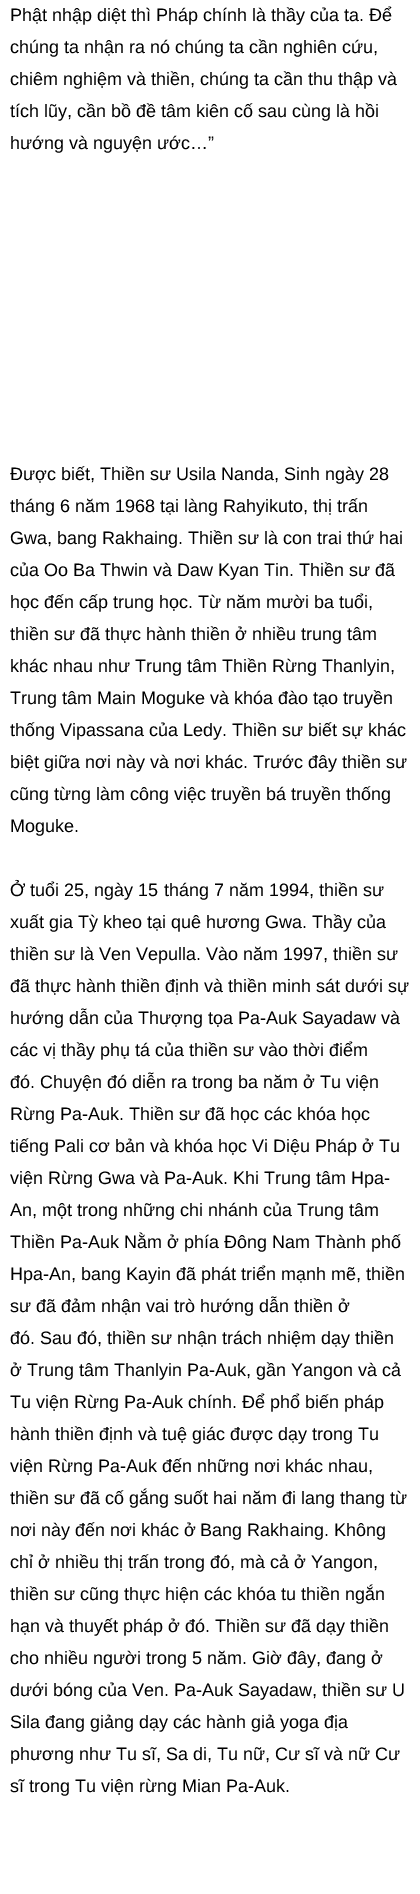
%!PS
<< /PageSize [420 1894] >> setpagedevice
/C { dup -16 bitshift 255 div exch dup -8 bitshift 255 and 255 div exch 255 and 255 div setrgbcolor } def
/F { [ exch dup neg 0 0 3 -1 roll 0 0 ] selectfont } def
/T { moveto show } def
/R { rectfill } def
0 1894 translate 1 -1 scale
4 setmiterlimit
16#FFFFFF C
0 0 420 1894 R
/LiberationSans-Regular 18 F
16#000000 C
(Phật nhập diệt thì Pháp chính là thầy của ta. Để) 10 21 T
(chúng ta nhận ra nó chúng ta cần nghiên cứu,) 10 53 T
(chiêm nghiệm và thiền, chúng ta cần thu thập và) 10 85 T
(tích lũy, cần bồ đề tâm kiên cố sau cùng là hồi) 10 117 T
(hướng và nguyện ước…”) 10 149 T
(Được biết, Thiền sư Usila Nanda, Sinh ngày 28) 10 480 T
(tháng 6 năm 1968 tại làng Rahyikuto, thị trấn) 10 512 T
(Gwa, bang Rakhaing. Thiền sư là con trai thứ hai) 10 544 T
(của Oo Ba Thwin và Daw Kyan Tin. Thiền sư đã) 10 576 T
(học đến cấp trung học. Từ năm mười ba tuổi,) 10 608 T
(thiền sư đã thực hành thiền ở nhiều trung tâm) 10 640 T
(khác nhau như Trung tâm Thiền Rừng Thanlyin,) 10 672 T
(Trung tâm Main Moguke và khóa đào tạo truyền) 10 704 T
(thống Vipassana của Ledy. Thiền sư biết sự khác) 10 736 T
(biệt giữa nơi này và nơi khác. Trước đây thiền sư) 10 768 T
(cũng từng làm công việc truyền bá truyền thống) 10 800 T
(Moguke.) 10 832 T
(Ở tuổi 25, ngày 15 tháng 7 năm 1994, thiền sư) 10 896 T
(xuất gia Tỳ kheo tại quê hương Gwa. Thầy của) 10 928 T
(thiền sư là Ven Vepulla. Vào năm 1997, thiền sư) 10 960 T
(đã thực hành thiền định và thiền minh sát dưới sự) 10 992 T
(hướng dẫn của Thượng tọa Pa-Auk Sayadaw và) 10 1024 T
(các vị thầy phụ tá của thiền sư vào thời điểm) 10 1056 T
(đó. Chuyện đó diễn ra trong ba năm ở Tu viện) 10 1088 T
(Rừng Pa-Auk. Thiền sư đã học các khóa học) 10 1120 T
(tiếng Pali cơ bản và khóa học Vi Diệu Pháp ở Tu) 10 1152 T
(viện Rừng Gwa và Pa-Auk. Khi Trung tâm Hpa-) 10 1184 T
(An, một trong những chi nhánh của Trung tâm) 10 1216 T
(Thiền Pa-Auk Nằm ở phía Đông Nam Thành phố) 10 1248 T
(Hpa-An, bang Kayin đã phát triển mạnh mẽ, thiền) 10 1280 T
(sư đã đảm nhận vai trò hướng dẫn thiền ở) 10 1312 T
(đó. Sau đó, thiền sư nhận trách nhiệm dạy thiền) 10 1344 T
(ở Trung tâm Thanlyin Pa-Auk, gần Yangon và cả) 10 1376 T
(Tu viện Rừng Pa-Auk chính. Để phổ biến pháp) 10 1408 T
(hành thiền định và tuệ giác được dạy trong Tu) 10 1440 T
(viện Rừng Pa-Auk đến những nơi khác nhau,) 10 1472 T
(thiền sư đã cố gắng suốt hai năm đi lang thang từ) 10 1504 T
(nơi này đến nơi khác ở Bang Rakhaing. Không) 10 1536 T
(chỉ ở nhiều thị trấn trong đó, mà cả ở Yangon,) 10 1568 T
(thiền sư cũng thực hiện các khóa tu thiền ngắn) 10 1600 T
(hạn và thuyết pháp ở đó. Thiền sư đã dạy thiền) 10 1632 T
(cho nhiều người trong 5 năm. Giờ đây, đang ở) 10 1664 T
(dưới bóng của Ven. Pa-Auk Sayadaw, thiền sư U) 10 1696 T
(Sila đang giảng dạy các hành giả yoga địa) 10 1728 T
(phương như Tu sĩ, Sa di, Tu nữ, Cư sĩ và nữ Cư) 10 1760 T
(sĩ trong Tu viện rừng Mian Pa-Auk.) 10 1792 T
showpage
